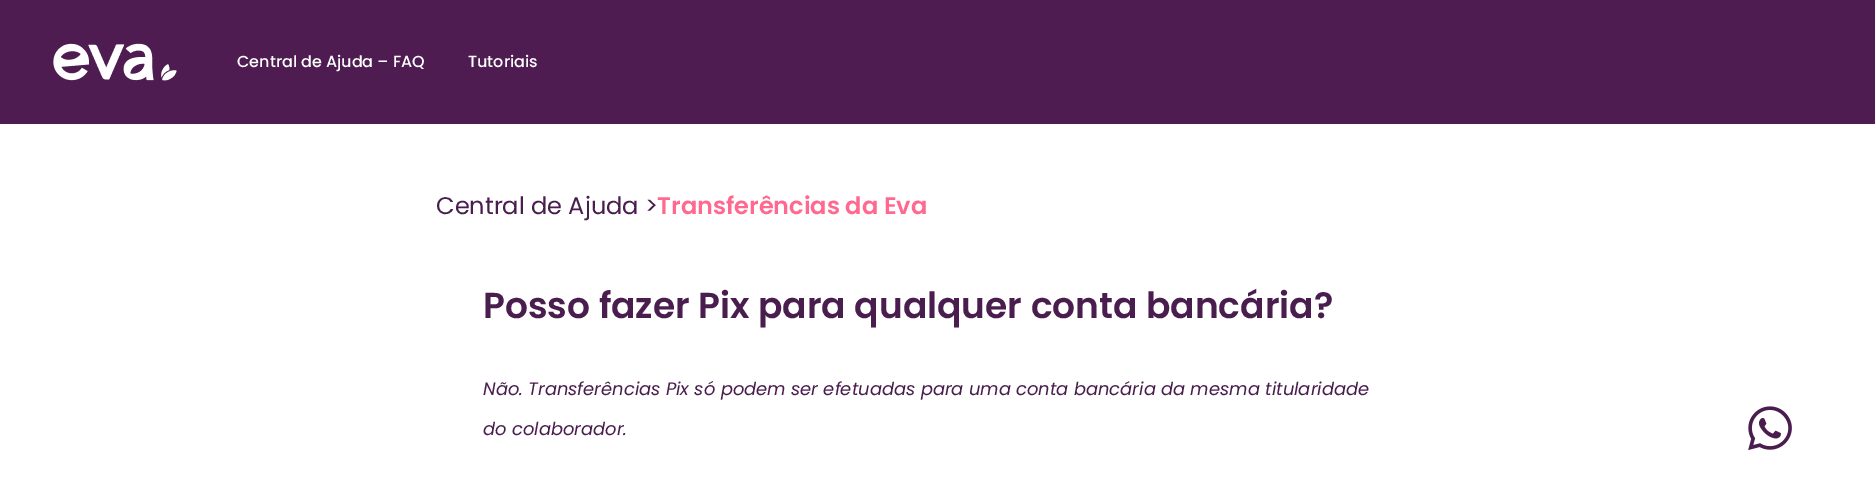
%!PS
<< /PageSize [1875 500] >> setpagedevice
/C { dup -16 bitshift 255 div exch dup -8 bitshift 255 and 255 div exch 255 and 255 div setrgbcolor } def
/F { [ exch dup neg 0 0 3 -1 roll 0 0 ] selectfont } def
/T { moveto show } def
/R { rectfill } def
/I { 5 dict begin { /h /w /y /x /name } { exch def } forall
  gsave x y translate w h scale
  w h 8 [w 0 0 h 0 0] name (r) file false 3 colorimage grestore end } def
0 500 translate 1 -1 scale
4 setmiterlimit
16#FFFFFF C
0 0 1875 500 R
16#4E1C51 C
0 0 1875 124 R
(1.rgb) 53 43 124 38 I
/Poppins-Medium 16 F
16#FFFFFF C
(Central de Ajuda – FAQ) 237 67 T
(Tutoriais) 468 67 T
/Poppins-Regular 24 F
16#4A1D4F C
(Central de Ajuda >) 436 214 T
/Poppins-SemiBold 24 F
16#FF698F C
(Transferências da Eva) 657 214 T
/Poppins-SemiBold 36 F
16#4A1D4F C
(Posso fazer Pix para qualquer conta bancária?) 483 318 T
/Poppins-Italic 17.9 F
(Não. Transferências Pix só podem ser efetuadas para uma conta bancária da mesma titularidade) 483 395 T
(do colaborador.) 483 435 T
(2.rgb) 1748 406 44 45 I
showpage
